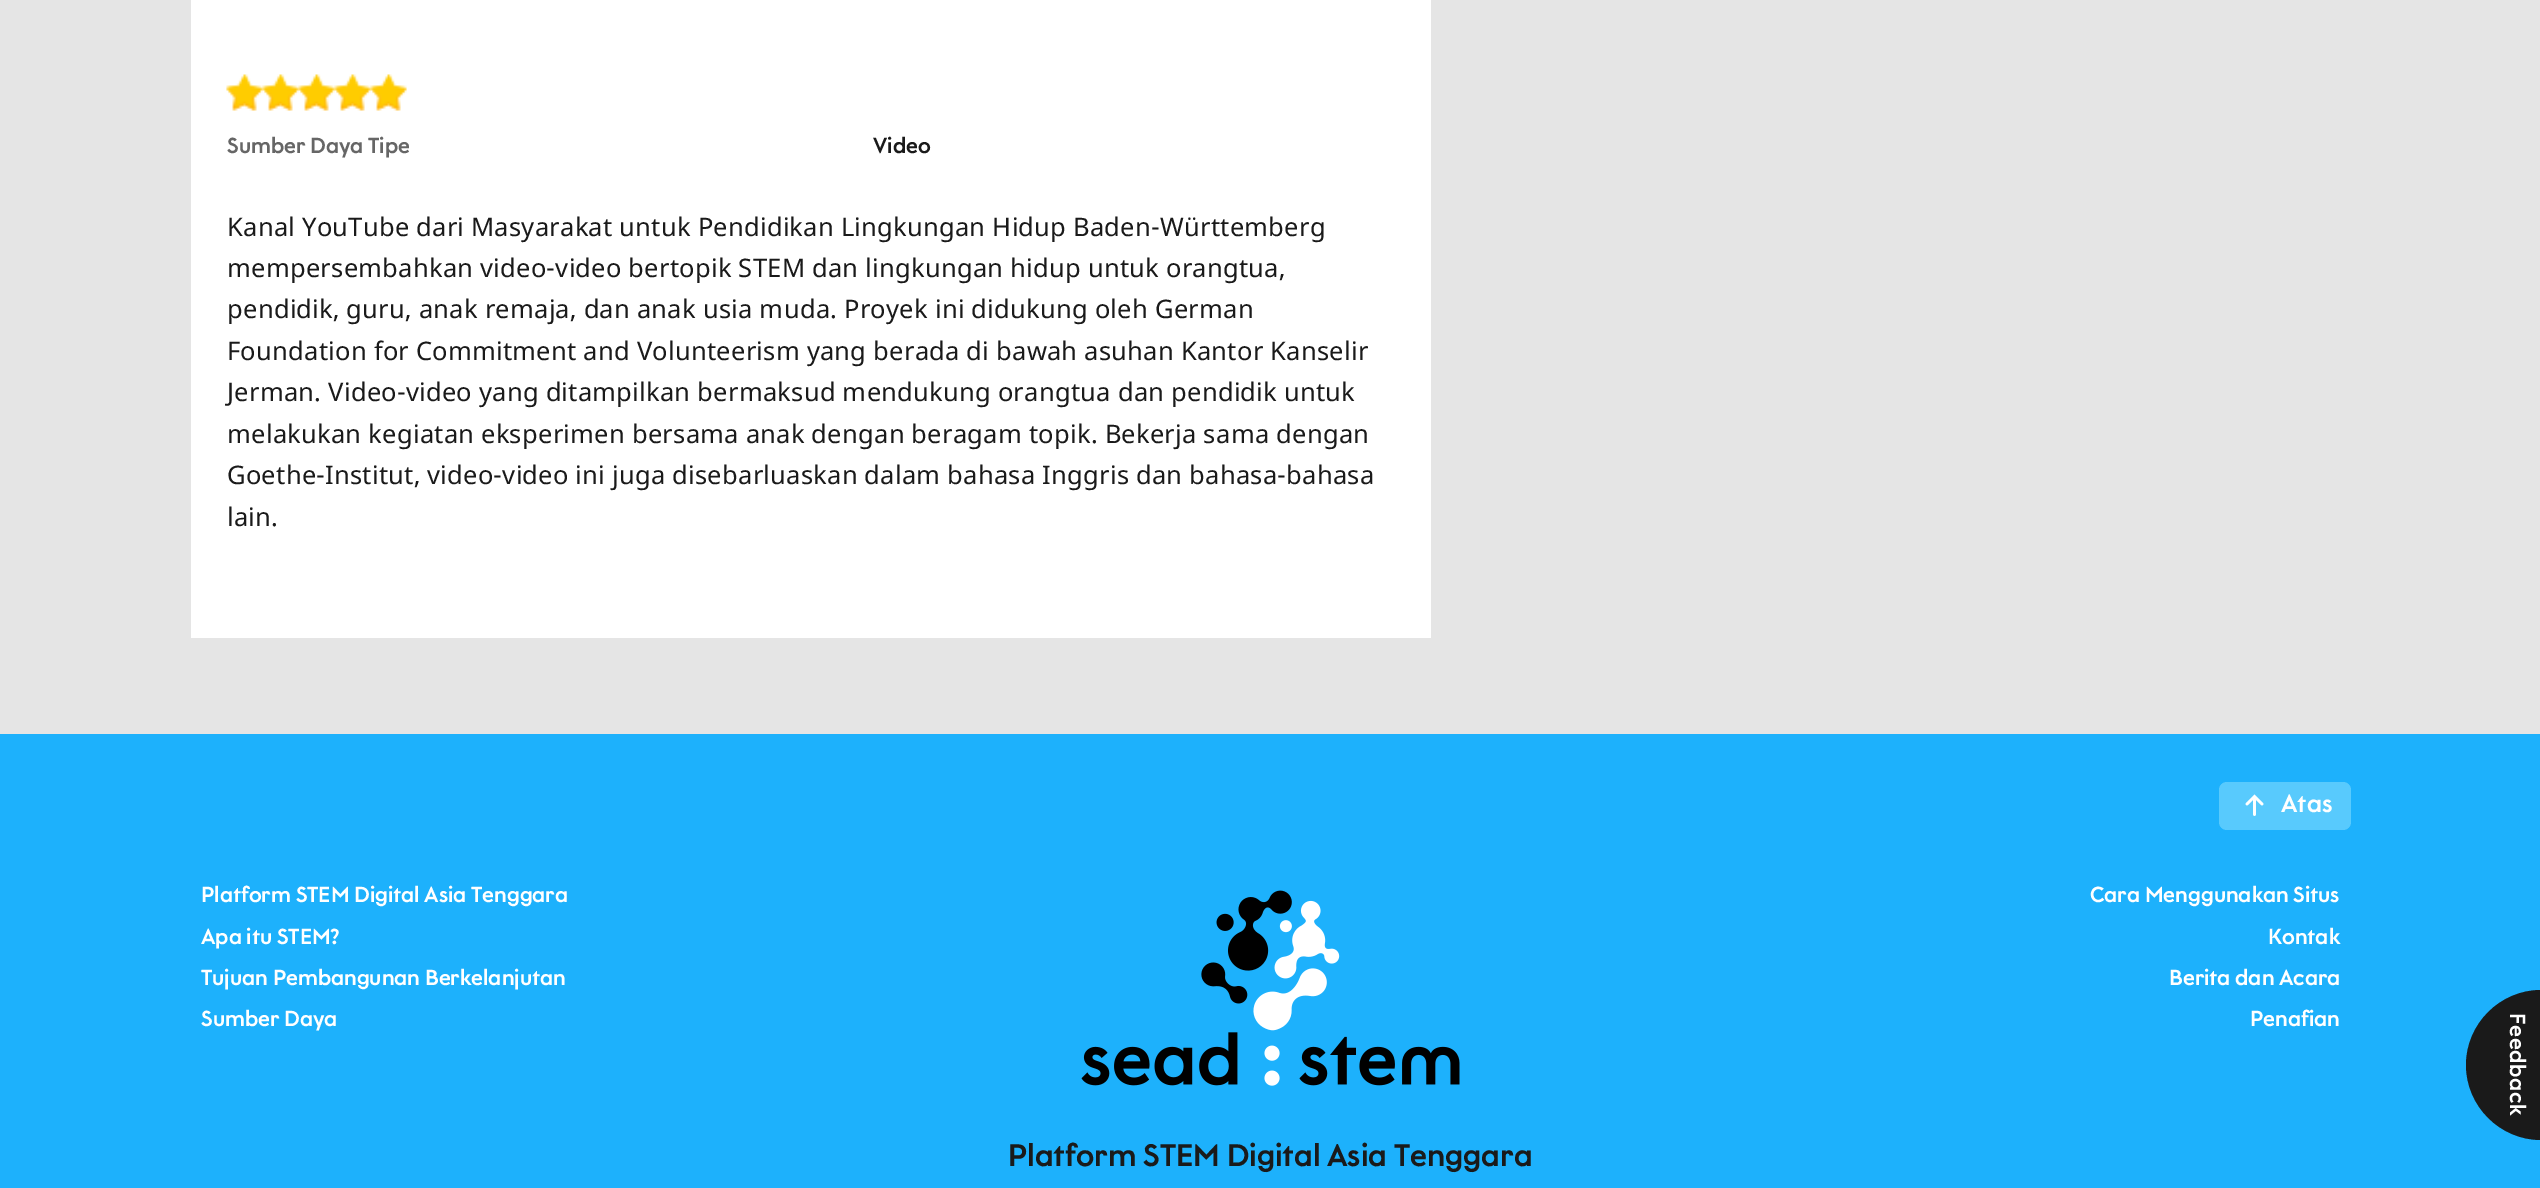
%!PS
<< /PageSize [2540 1188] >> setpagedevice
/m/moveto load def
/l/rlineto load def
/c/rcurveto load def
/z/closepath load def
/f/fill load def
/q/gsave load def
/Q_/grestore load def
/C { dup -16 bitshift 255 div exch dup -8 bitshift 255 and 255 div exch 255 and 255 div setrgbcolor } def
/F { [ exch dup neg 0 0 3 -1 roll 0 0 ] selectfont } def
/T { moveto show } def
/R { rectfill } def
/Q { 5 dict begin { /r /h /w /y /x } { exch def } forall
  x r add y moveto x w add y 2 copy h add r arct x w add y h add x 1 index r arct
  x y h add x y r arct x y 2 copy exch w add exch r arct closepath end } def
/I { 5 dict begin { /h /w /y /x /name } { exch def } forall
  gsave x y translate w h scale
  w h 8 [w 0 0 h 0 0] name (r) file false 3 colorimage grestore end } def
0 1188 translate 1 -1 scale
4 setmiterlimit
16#E5E5E5 C
0 0 2540 1188 R
16#FFFFFF C
191 0 1240 638 R
(1.rgb) 226 74 37 37 I
(2.rgb) 262 74 37 37 I
(3.rgb) 298 74 37 37 I
(4.rgb) 334 74 37 37 I
(3.rgb) 370 74 37 37 I
/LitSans-Medium 21 F
16#666666 C
(Sumber Daya Tipe) 227 153 T
16#1A1A1A C
(Video) 873 153 T
/NotoSans-Regular 25.5 F
227 236 m .25 0 (Kanal YouTube dari Masyarakat untuk Pendidikan Lingkungan Hidup Baden-Württemberg) ashow
227 277 m .25 0 (mempersembahkan video-video bertopik STEM dan lingkungan hidup untuk orangtua,) ashow
227 318 m .25 0 (pendidik, guru, anak remaja, dan anak usia muda. Proyek ini didukung oleh German) ashow
227 360 m .25 0 (Foundation for Commitment and Volunteerism yang berada di bawah asuhan Kantor Kanselir) ashow
227 401 m .25 0 (Jerman. Video-video yang ditampilkan bermaksud mendukung orangtua dan pendidik untuk) ashow
227 443 m .25 0 (melakukan kegiatan eksperimen bersama anak dengan beragam topik. Bekerja sama dengan) ashow
227 484 m .25 0 (Goethe-Institut, video-video ini juga disebarluaskan dalam bahasa Inggris dan bahasa-bahasa) ashow
227 526 m .25 0 (lain.) ashow
16#1DB1FC C
0 734 2540 454 R
16#58CAFD C
2219 782 132 48 8 Q f
(5.rgb) 2245 794 19 22 I
/LitSans-Medium 24 F
16#FFFFFF C
(Atas) 2281 812 T
/LitSans-Medium 21 F
(Platform STEM Digital Asia Tenggara) 201 902 T
(Apa itu STEM?) 201 944 T
(Tujuan Pembangunan Berkelanjutan) 201 985 T
(Sumber Daya) 201 1026 T
(Cara Menggunakan Situs) 2090 902 T
(Kontak) 2268 944 T
(Berita dan Acara) 2169 985 T
(Penafian) 2250 1026 T
(6.rgb) 1081 890 379 196 I
/LitSans-Medium 30 F
16#1A1A1A C
(Platform STEM Digital Asia Tenggara) 1008 1166 T
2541 990 m 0 150 l -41 0 -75 -34 -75 -75 c 0 -41 34 -75 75 -75 c z f
/LitSans-Medium 21 F
16#FFFFFF C
q 2510 1013 translate 90 rotate 0 0 m .75 0 (Feedback) ashow Q_
showpage
